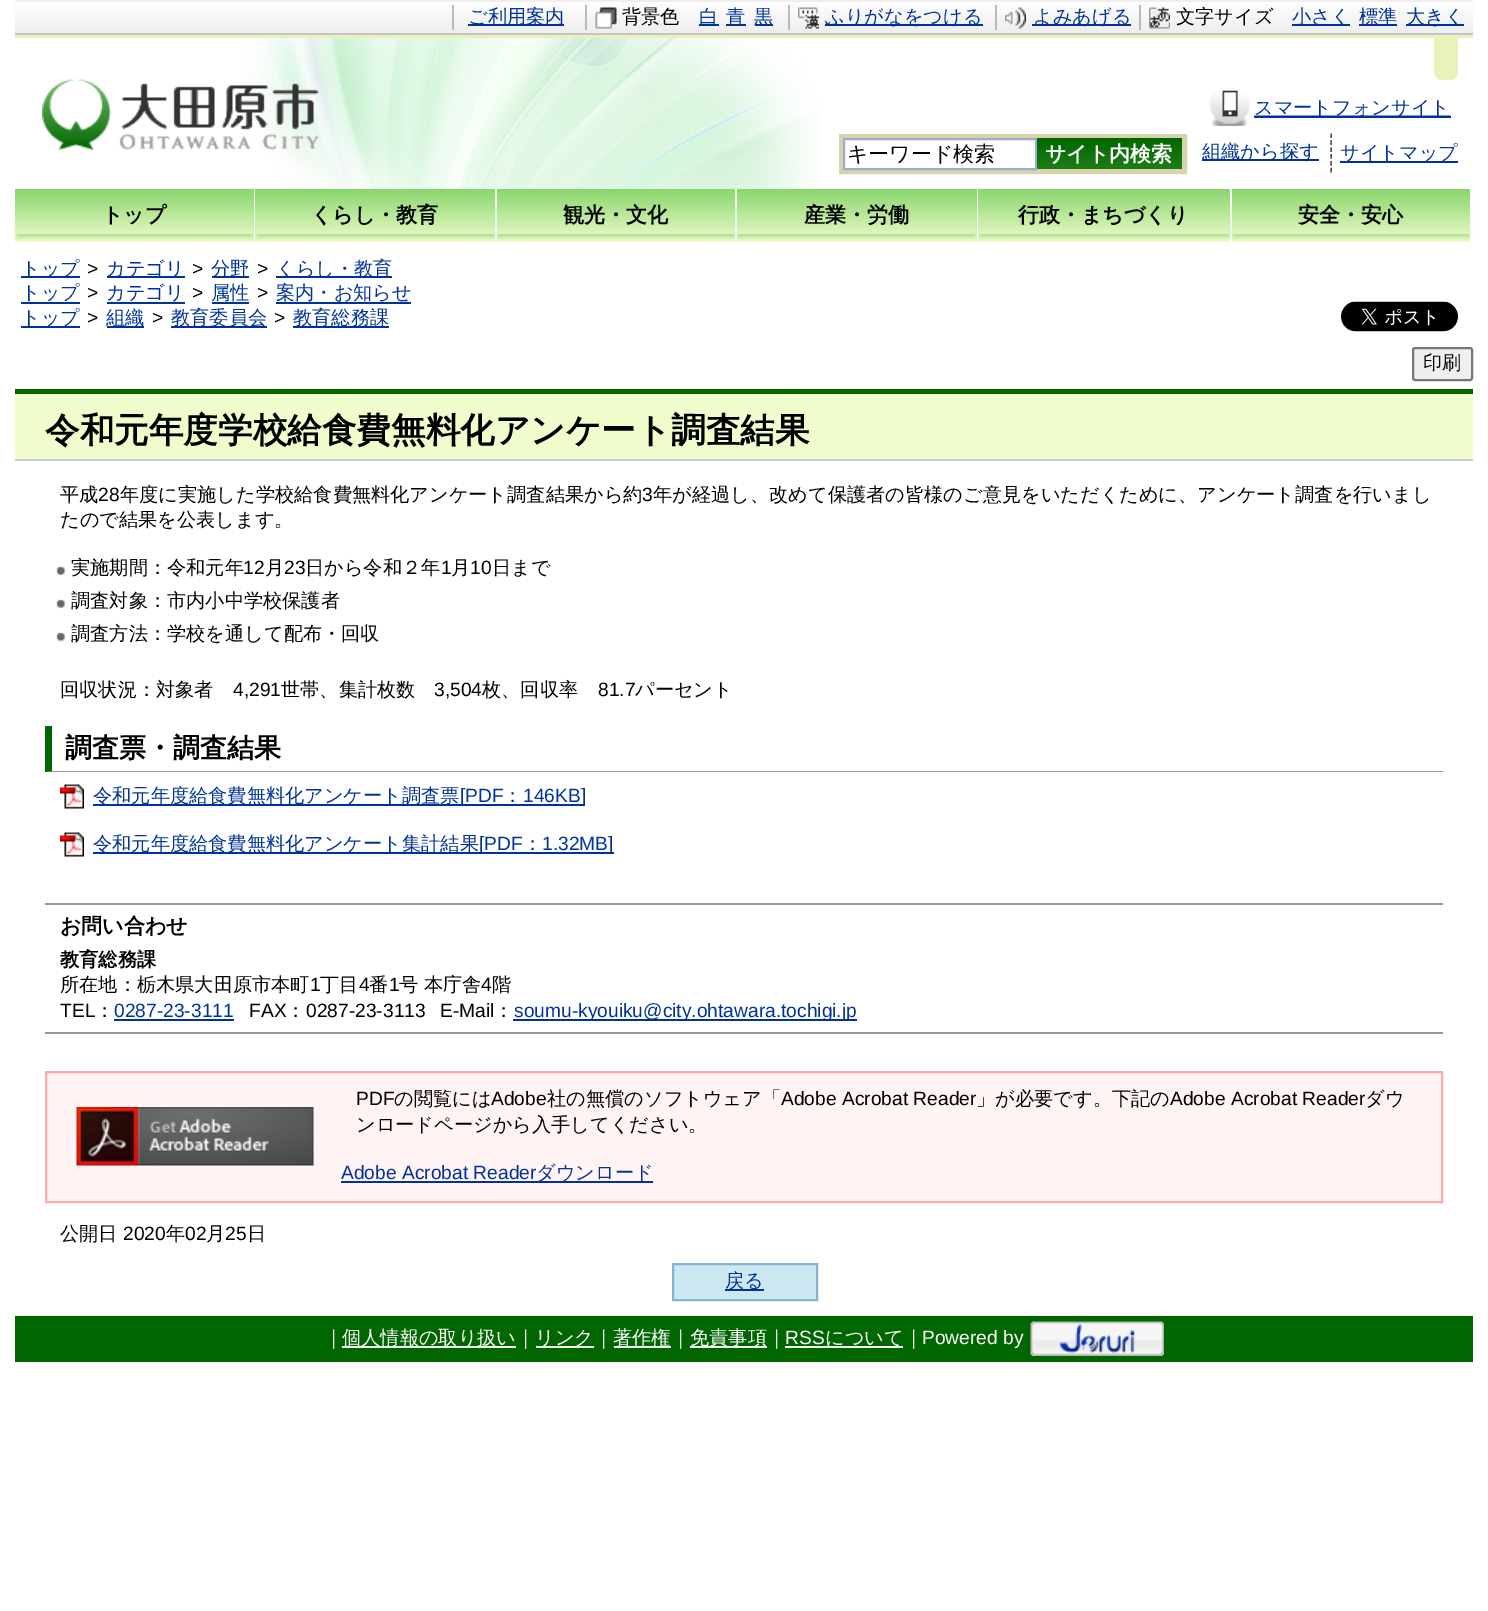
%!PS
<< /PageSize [1488 1611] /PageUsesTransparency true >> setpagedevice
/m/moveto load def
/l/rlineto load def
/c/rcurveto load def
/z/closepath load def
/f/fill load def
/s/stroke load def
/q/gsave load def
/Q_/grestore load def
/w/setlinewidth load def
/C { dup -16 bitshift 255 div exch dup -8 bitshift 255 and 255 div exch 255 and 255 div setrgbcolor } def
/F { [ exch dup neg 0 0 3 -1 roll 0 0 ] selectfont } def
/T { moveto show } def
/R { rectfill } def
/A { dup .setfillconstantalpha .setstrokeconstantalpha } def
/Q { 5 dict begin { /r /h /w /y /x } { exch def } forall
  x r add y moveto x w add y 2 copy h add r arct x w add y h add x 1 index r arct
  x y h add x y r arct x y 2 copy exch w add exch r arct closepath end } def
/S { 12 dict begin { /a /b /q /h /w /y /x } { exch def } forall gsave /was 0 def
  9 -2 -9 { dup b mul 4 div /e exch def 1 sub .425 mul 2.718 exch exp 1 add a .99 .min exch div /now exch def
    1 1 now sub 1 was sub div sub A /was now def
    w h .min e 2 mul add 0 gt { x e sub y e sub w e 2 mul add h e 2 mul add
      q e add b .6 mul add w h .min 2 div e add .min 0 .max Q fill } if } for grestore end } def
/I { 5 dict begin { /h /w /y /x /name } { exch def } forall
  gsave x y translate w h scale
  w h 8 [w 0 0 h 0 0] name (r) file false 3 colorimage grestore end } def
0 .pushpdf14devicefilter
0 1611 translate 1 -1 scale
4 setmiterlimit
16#FFFFFF C
0 0 1488 1611 R
q 15 0 m 1458 0 l 0 2 l -1458 0 l z clip newpath
<< /ShadingType 2 /ColorSpace /DeviceRGB /Coords [744 -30 744 1.5] /Extend [true true] /Function << /FunctionType 2 /Domain [0 1] /C0 [.996 .996 .996] /C1 [.933 .933 .937] /N 1 >> >> shfill Q_
q 15 4 m 1458 0 l 0 29 l -1458 0 l z clip newpath
<< /ShadingType 2 /ColorSpace /DeviceRGB /Coords [744 1.5 744 33] /Extend [true true] /Function << /FunctionType 2 /Domain [0 1] /C0 [.996 .996 .996] /C1 [.933 .933 .937] /N 1 >> >> shfill Q_
16#C5C5C5 C
15 33 1458 2 R
16#BBBBBB C
452 5 2 25 R
16#003399 C
468 24 96 2 R
/WenQuanYiZenHei-Medium 19.2 F
(ご利用案内) 468 23 T
(1.rgb) 595 7 22 22 I
16#BBBBBB C
585 5 2 25 R
16#000000 C
(背景色) 622 23 T
16#003399 C
699 24 20 2 R
(白) 699 23 T
726 24 20 2 R
(青) 726 23 T
755 24 18 2 R
(黒) 754 23 T
(2.rgb) 798 7 21 22 I
16#BBBBBB C
788 5 2 25 R
16#003399 C
825 24 158 2 R
(ふりがなをつける) 825 23 T
(3.rgb) 1005 7 21 22 I
16#BBBBBB C
995 5 2 25 R
16#003399 C
1032 24 99 2 R
(よみあげる) 1033 23 T
(4.rgb) 1149 7 21 22 I
16#BBBBBB C
1139 5 2 25 R
16#000000 C
(文字サイズ) 1176 23 T
16#003399 C
1292 24 58 2 R
(小さく) 1292 23 T
1359 24 38 2 R
(標準) 1359 23 T
1406 24 58 2 R
(大きく) 1406 23 T
(5.rgb) 246 38 574 151 I
16#E9F2BB C
15 35 1458 3 R
(6.rgb) 42 79 278 71 I
1434 38 m 24 0 l 0 34 l 0 4.5 -3.5 8 -8 8 c -8 0 l -4.5 0 -8 -3.5 -8 -8 c z f
(7.rgb) 1209 90 242 36 I
16#003399 C
1254 116 197 2 R
(スマートフォンサイト) 1254 114 T
q 1037 167 m 145 0 l 0 2 l -145 0 l z clip newpath
<< /ShadingType 2 /ColorSpace /DeviceRGB /Coords [1013 138 1013 170] /Extend [true true] /Function << /FunctionType 2 /Domain [0 1] /C0 [0 .4 0] /C1 [.11 .486 .082] /N 1 >> >> shfill Q_
16#D7D4AC C
5 w
841.5 136.5 343 35 rectstroke
16#9EACD3 C
2 w
844 139 192 30 rectstroke
/WenQuanYiZenHei-Medium 21 F
16#000000 C
(キーワード検索) 847 161 T
q 1037 138 m 145 0 l 0 29 l -145 0 l z clip newpath
<< /ShadingType 2 /ColorSpace /DeviceRGB /Coords [1109 138 1109 167] /Extend [true true] /Function << /FunctionType 2 /Domain [0 1] /C0 [0 .4 0] /C1 [.11 .486 .082] /N 1 >> >> shfill Q_
/WenQuanYiZenHei-Bold 21 F
16#FFFFFF C
(サイト内検索) 1045 161 T
16#003399 C
1202 159 117 2 R
/WenQuanYiZenHei-Medium 19.2 F
(組織から探す) 1202 158 T
16#555555 C
1.5 w
[4.5 2.4] 0 setdash
1331 133.5 m 0 39 l s
16#003399 C
1340 161 118 2 R
(サイトマップ) 1340 159 T
q 15 189 m 239 0 l 0 53 l -239 0 l z clip newpath
<< /ShadingType 2 /ColorSpace /DeviceRGB /Coords [134 189 134 242] /Extend [true true] /Function << /FunctionType 2 /Domain [0 1] /C0 [.537 .835 .424] /C1 [.933 .992 .796] /N 1 >> >> shfill Q_
q
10 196 m 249 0 l 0 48 l -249 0 l z 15 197 m 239 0 l 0 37 l -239 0 l z eoclip newpath
16#006600 C
17 203 235 34 0 2 .2 S
Q_
/WenQuanYiZenHei-Bold 21 F
16#000000 C
(トップ) 102 222 T
q 255 189 m 240 0 l 0 53 l -240 0 l z clip newpath
<< /ShadingType 2 /ColorSpace /DeviceRGB /Coords [375 189 375 242] /Extend [true true] /Function << /FunctionType 2 /Domain [0 1] /C0 [.537 .835 .424] /C1 [.933 .992 .796] /N 1 >> >> shfill Q_
q
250 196 m 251 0 l 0 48 l -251 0 l z 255 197 m 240 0 l 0 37 l -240 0 l z eoclip newpath
16#006600 C
257 203 237 34 0 2 .2 S
Q_
(くらし・教育) 311 222 T
q 497 189 m 238 0 l 0 53 l -238 0 l z clip newpath
<< /ShadingType 2 /ColorSpace /DeviceRGB /Coords [616 189 616 242] /Extend [true true] /Function << /FunctionType 2 /Domain [0 1] /C0 [.537 .835 .424] /C1 [.933 .992 .796] /N 1 >> >> shfill Q_
q
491 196 m 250 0 l 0 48 l -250 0 l z 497 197 m 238 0 l 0 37 l -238 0 l z eoclip newpath
16#006600 C
498 203 236 34 0 2 .2 S
Q_
(観光・文化) 563 222 T
q 737 189 m 240 0 l 0 53 l -240 0 l z clip newpath
<< /ShadingType 2 /ColorSpace /DeviceRGB /Coords [857 189 857 242] /Extend [true true] /Function << /FunctionType 2 /Domain [0 1] /C0 [.537 .835 .424] /C1 [.933 .992 .796] /N 1 >> >> shfill Q_
q
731 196 m 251 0 l 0 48 l -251 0 l z 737 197 m 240 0 l 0 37 l -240 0 l z eoclip newpath
16#006600 C
738 203 237 34 0 2 .2 S
Q_
(産業・労働) 804 222 T
q 978 189 m 252 0 l 0 53 l -252 0 l z clip newpath
<< /ShadingType 2 /ColorSpace /DeviceRGB /Coords [1104 189 1104 242] /Extend [true true] /Function << /FunctionType 2 /Domain [0 1] /C0 [.537 .835 .424] /C1 [.933 .992 .796] /N 1 >> >> shfill Q_
q
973 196 m 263 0 l 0 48 l -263 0 l z 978 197 m 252 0 l 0 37 l -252 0 l z eoclip newpath
16#006600 C
980 203 249 34 0 2 .2 S
Q_
(行政・まちづくり) 1018 222 T
q 1232 189 m 238 0 l 0 53 l -238 0 l z clip newpath
<< /ShadingType 2 /ColorSpace /DeviceRGB /Coords [1351 189 1351 242] /Extend [true true] /Function << /FunctionType 2 /Domain [0 1] /C0 [.537 .835 .424] /C1 [.933 .992 .796] /N 1 >> >> shfill Q_
q
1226 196 m 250 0 l 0 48 l -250 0 l z 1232 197 m 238 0 l 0 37 l -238 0 l z eoclip newpath
16#006600 C
1233 203 236 34 0 2 .2 S
Q_
(安全・安心) 1298 222 T
16#003399 C
21 276 59 2 R
/WenQuanYiZenHei-Medium 19.2 F
(トップ) 21 275 T
/LiberationSans-Regular 19.2 F
16#000000 C
(>) 87 275 T
16#003399 C
107 276 78 2 R
/WenQuanYiZenHei-Medium 19.2 F
(カテゴリ) 106 275 T
/LiberationSans-Regular 19.2 F
16#000000 C
(>) 192 275 T
16#003399 C
212 276 37 2 R
/WenQuanYiZenHei-Medium 19.2 F
(分野) 211 275 T
/LiberationSans-Regular 19.2 F
16#000000 C
(>) 257 275 T
16#003399 C
276 276 116 2 R
/WenQuanYiZenHei-Medium 19.2 F
(くらし・教育) 276 275 T
(トップ) 21 299 T
21 302 59 2 R
/LiberationSans-Regular 19.2 F
16#000000 C
(>) 87 299 T
/WenQuanYiZenHei-Medium 19.2 F
16#003399 C
(カテゴリ) 106 299 T
107 302 78 2 R
/LiberationSans-Regular 19.2 F
16#000000 C
(>) 192 299 T
/WenQuanYiZenHei-Medium 19.2 F
16#003399 C
(属性) 211 299 T
212 302 37 2 R
/LiberationSans-Regular 19.2 F
16#000000 C
(>) 257 299 T
/WenQuanYiZenHei-Medium 19.2 F
16#003399 C
(案内・お知らせ) 276 299 T
276 302 135 2 R
21 326 59 2 R
(トップ) 21 324 T
/LiberationSans-Regular 19.2 F
16#000000 C
(>) 87 324 T
16#003399 C
107 326 37 2 R
/WenQuanYiZenHei-Medium 19.2 F
(組織) 106 324 T
/LiberationSans-Regular 19.2 F
16#000000 C
(>) 152 324 T
16#003399 C
171 326 96 2 R
/WenQuanYiZenHei-Medium 19.2 F
(教育委員会) 171 324 T
/LiberationSans-Regular 19.2 F
16#000000 C
(>) 274 324 T
16#003399 C
293 326 96 2 R
/WenQuanYiZenHei-Medium 19.2 F
(教育総務課) 293 324 T
(8.rgb) 1341 301 117 31 I
16#EFEFEF C
1413 348 59 32 2 Q q f Q_
16#767676 C
2 w
[] 0 setdash
s
/WenQuanYiZenHei-Medium 19 F
16#000000 C
(印刷) 1423 369 T
16#EEFDCB C
15 394 1458 65 R
16#006600 C
15 389 1458 5 R
16#CCCCCC C
15 459 1458 2 R
/WenQuanYiZenHei-Bold 34.6 F
16#000000 C
(令和元年度学校給食費無料化アンケート調査結果) 45 442 T
/WenQuanYiZenHei-Medium 19.2 F
(平成) 60 501 T
/LiberationSans-Regular 19.2 F
(28) 98 501 T
/WenQuanYiZenHei-Medium 19.2 F
(年度に実施した学校給食費無料化アンケート調査結果から約) 120 501 T
/LiberationSans-Regular 19.2 F
(3) 642 501 T
/WenQuanYiZenHei-Medium 19.2 F
(年が経過し、改めて保護者の皆様のご意見をいただくために、アンケート調査を行いまし) 653 501 T
(たので結果を公表します。) 60 526 T
(9.rgb) 56 566 10 10 I
(実施期間：令和元年) 71 574 T
/LiberationSans-Regular 19.2 F
(12) 243 574 T
/WenQuanYiZenHei-Medium 19.2 F
(月) 265 574 T
/LiberationSans-Regular 19.2 F
(23) 284 574 T
/WenQuanYiZenHei-Medium 19.2 F
(日から令和２年) 305 574 T
/LiberationSans-Regular 19.2 F
(1) 441 574 T
/WenQuanYiZenHei-Medium 19.2 F
(月) 451 574 T
/LiberationSans-Regular 19.2 F
(10) 470 574 T
/WenQuanYiZenHei-Medium 19.2 F
(日まで) 492 574 T
(9.rgb) 56 599 10 10 I
(調査対象：市内小中学校保護者) 71 607 T
(9.rgb) 56 632 10 10 I
(調査方法：学校を通して配布・回収) 71 640 T
(回収状況：対象者) 60 696 T
/LiberationSans-Regular 19.2 F
(4,291) 233 696 T
/WenQuanYiZenHei-Medium 19.2 F
(世帯、集計枚数) 281 696 T
/LiberationSans-Regular 19.2 F
(3,504) 434 696 T
/WenQuanYiZenHei-Medium 19.2 F
(枚、回収率) 482 696 T
/LiberationSans-Regular 19.2 F
(81.7) 598 696 T
/WenQuanYiZenHei-Medium 19.2 F
(パーセント) 635 696 T
16#999999 C
1443 772 m -1398 0 l 7 -1 l 1391 0 l z f
16#006600 C
45 772 m 0 -46 l 7 0 l 0 45 l z f
/WenQuanYiZenHei-Bold 27 F
16#000000 C
(調査票・調査結果) 65 757 T
(10.rgb) 60 784 24 25 I
16#003399 C
93 804 492 2 R
/WenQuanYiZenHei-Medium 19.2 F
(令和元年度給食費無料化アンケート調査票) 93 802 T
/LiberationSans-Regular 19.2 F
([PDF) 460 802 T
/WenQuanYiZenHei-Medium 19.2 F
(：) 503 802 T
/LiberationSans-Regular 19.2 F
(146KB]) 523 802 T
(10.rgb) 60 832 24 25 I
93 852 521 2 R
/WenQuanYiZenHei-Medium 19.2 F
(令和元年度給食費無料化アンケート集計結果) 93 850 T
/LiberationSans-Regular 19.2 F
([PDF) 479 850 T
/WenQuanYiZenHei-Medium 19.2 F
(：) 523 850 T
/LiberationSans-Regular 19.2 F
(1.32MB]) 542 850 T
16#999999 C
45 903 1398 2 R
45 1032 1398 2 R
/WenQuanYiZenHei-Bold 21 F
16#000000 C
(お問い合わせ) 60 933 T
/WenQuanYiZenHei-Bold 19.2 F
(教育総務課) 60 966 T
/WenQuanYiZenHei-Medium 19.2 F
(所在地：栃木県大田原市本町) 60 991 T
/LiberationSans-Regular 19.2 F
(1) 310 991 T
/WenQuanYiZenHei-Medium 19.2 F
(丁目) 320 991 T
/LiberationSans-Regular 19.2 F
(4) 359 991 T
/WenQuanYiZenHei-Medium 19.2 F
(番) 369 991 T
/LiberationSans-Regular 19.2 F
(1) 389 991 T
/WenQuanYiZenHei-Medium 19.2 F
(号 本庁舎) 399 991 T
/LiberationSans-Regular 19.2 F
(4) 481 991 T
/WenQuanYiZenHei-Medium 19.2 F
(階) 492 991 T
/LiberationSans-Regular 19.2 F
(TEL) 60 1017 T
/WenQuanYiZenHei-Medium 19.2 F
(：) 95 1017 T
/LiberationSans-Regular 19.2 F
16#003399 C
(0287-23-3111) 114 1017 T
114 1019 120 2 R
16#000000 C
(FAX) 249 1017 T
/WenQuanYiZenHei-Medium 19.2 F
(：) 286 1017 T
/LiberationSans-Regular 19.2 F
(0287-23-3113) 306 1017 T
(E-Mail) 440 1017 T
/WenQuanYiZenHei-Medium 19.2 F
(：) 494 1017 T
16#003399 C
513 1019 344 2 R
/LiberationSans-Regular 19.2 F
(soumu-kyouiku@city.ohtawara.tochigi.jp) 514 1017 T
16#FFF3F3 C
47 1073 1394 128 R
(11.rgb) 76 1107 238 59 I
16#FFAAAA C
46 1072 1396 130 rectstroke
16#000000 C
(PDF) 356 1105 T
/WenQuanYiZenHei-Medium 19.2 F
(の閲覧には) 394 1105 T
/LiberationSans-Regular 19.2 F
(Adobe) 491 1105 T
/WenQuanYiZenHei-Medium 19.2 F
(社の無償のソフトウェア「) 547 1105 T
/LiberationSans-Regular 19.2 F
(Adobe Acrobat Reader) 781 1105 T
/WenQuanYiZenHei-Medium 19.2 F
(」が必要です。下記の) 976 1105 T
/LiberationSans-Regular 19.2 F
(Adobe Acrobat Reader) 1170 1105 T
/WenQuanYiZenHei-Medium 19.2 F
(ダウ) 1365 1105 T
(ンロードページから入手してください。) 356 1131 T
/LiberationSans-Regular 19.2 F
16#003399 C
(Adobe Acrobat Reader) 341 1179 T
341 1181 312 2 R
/WenQuanYiZenHei-Medium 19.2 F
(ダウンロード) 536 1179 T
16#000000 C
(公開日) 60 1240 T
/LiberationSans-Regular 19.2 F
(2020) 123 1240 T
/WenQuanYiZenHei-Medium 19.2 F
(年) 166 1240 T
/LiberationSans-Regular 19.2 F
(02) 185 1240 T
/WenQuanYiZenHei-Medium 19.2 F
(月) 206 1240 T
/LiberationSans-Regular 19.2 F
(25) 225 1240 T
/WenQuanYiZenHei-Medium 19.2 F
(日) 247 1240 T
16#CCE8F1 C
673 1264 m 144 0 l 0 36 l -144 0 l z q f Q_
16#88B2D1 C
s
16#003399 C
725 1289 39 2 R
(戻る) 725 1287 T
16#006600 C
15 1316 1458 46 R
16#FFFFFF C
(｜) 324 1344 T
342 1346 174 2 R
(個人情報の取り扱い｜) 342 1344 T
536 1346 58 2 R
(リンク｜) 535 1344 T
614 1346 57 2 R
(著作権｜) 613 1344 T
690 1346 77 2 R
(免責事項｜) 690 1344 T
/LiberationSans-Regular 19.2 F
(RSS) 785 1344 T
785 1346 118 2 R
/WenQuanYiZenHei-Medium 19.2 F
(について｜) 825 1344 T
/LiberationSans-Regular 19.2 F
(Powered by) 922 1344 T
(12.rgb) 1030 1321 134 35 I
.poppdf14devicefilter showpage
